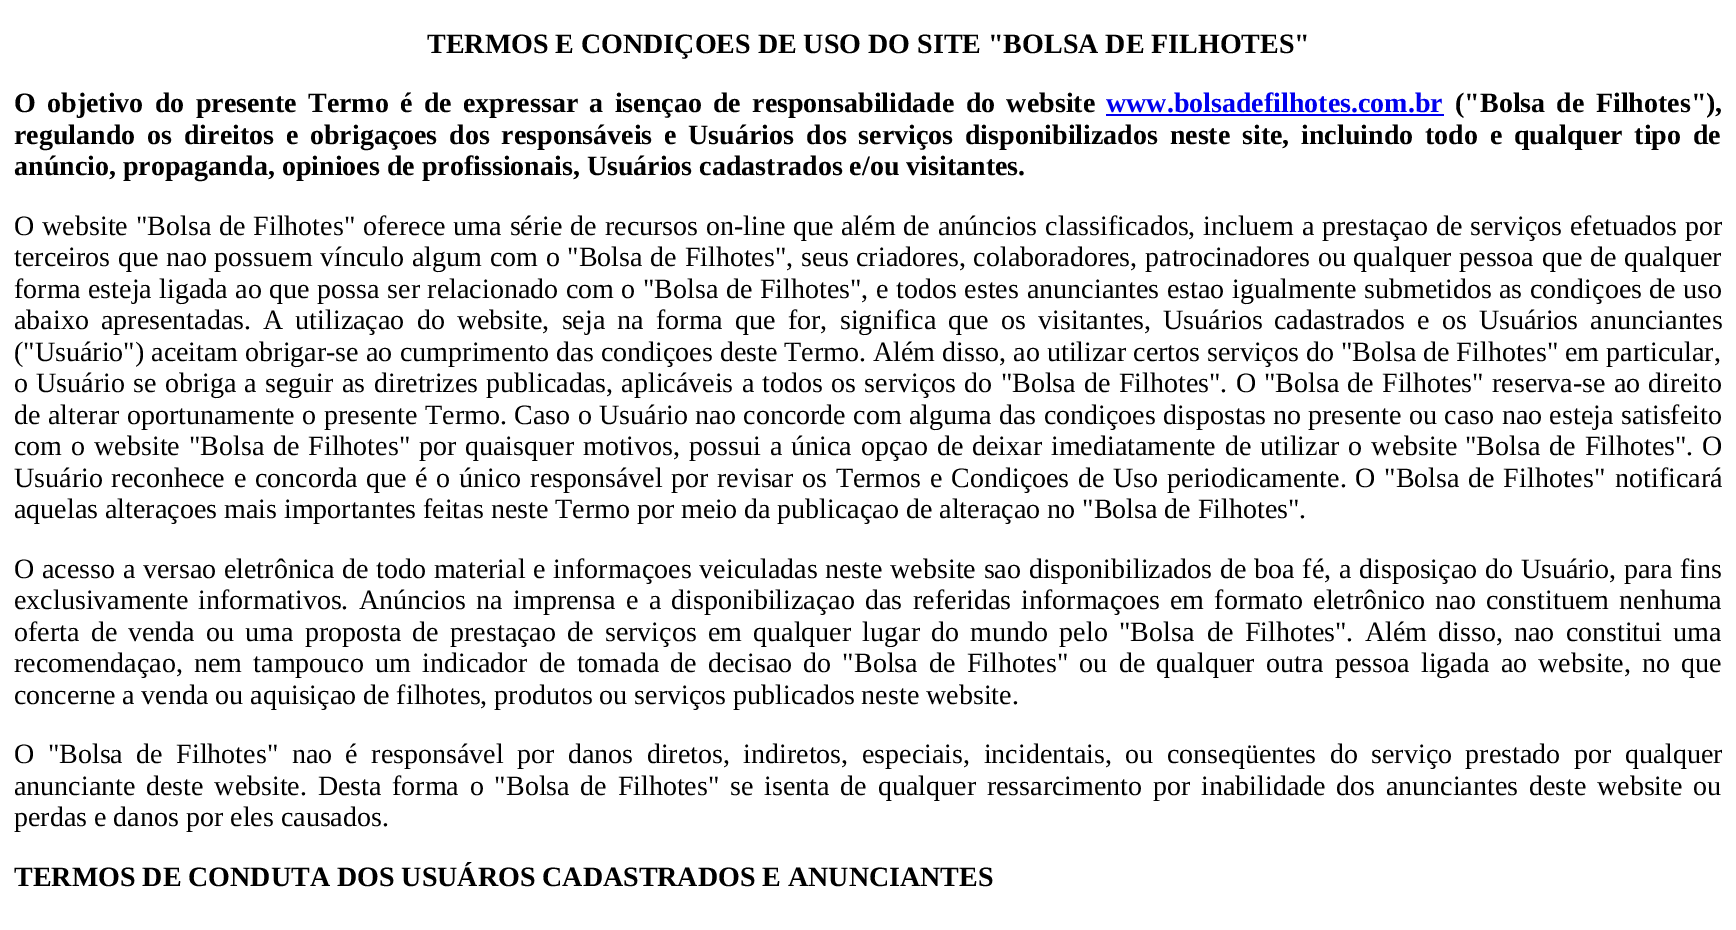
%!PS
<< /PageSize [1736 930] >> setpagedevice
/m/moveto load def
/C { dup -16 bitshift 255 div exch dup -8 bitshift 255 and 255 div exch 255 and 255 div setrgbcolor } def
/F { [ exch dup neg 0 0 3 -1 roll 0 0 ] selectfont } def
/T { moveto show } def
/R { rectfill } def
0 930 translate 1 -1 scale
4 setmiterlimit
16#FFFFFF C
0 0 1736 930 R
/LiberationSerif-Bold 28 F
16#000000 C
(TERMOS E CONDIÇOES DE USO DO SITE "BOLSA DE FILHOTES") 427 53 T
14 112 m 4.25 0 32 (O objetivo do presente Termo é de) widthshow
463 112 m 4.25 0 32 (expressar a isençao de responsabilidade do website) widthshow
16#0000EE C
(www.bolsadefilhotes.com.br) 1106 112 T
1106 114 338 2 R
16#000000 C
1455 112 m 4.25 0 32 (\("Bolsa de Filhotes"\),) widthshow
14 144 m 4.75 0 32 (regulando os direitos e obrigaçoes dos responsáveis e Usuários) widthshow
806 144 m 4.75 0 32 (dos serviços disponibilizados neste site, incluindo todo e qualquer tipo de) widthshow
(anúncio, propaganda, opinioes de profissionais, Usuários cadastrados e/ou visitantes.) 14 175 T
/LiberationSerif-Regular 28 F
14 235 m 1 0 32 (O website "Bolsa de Filhotes" oferece uma série de recursos on-line que) widthshow
841 235 m 1 0 32 (além de anúncios classificados, incluem a prestaçao de serviços efetuados por) widthshow
14 266 m .75 0 32 (terceiros que nao possuem vínculo algum com o "Bolsa de Filhotes", seus) widthshow
856 266 m .75 0 32 (criadores, colaboradores, patrocinadores ou qualquer pessoa que de qualquer) widthshow
(forma) 14 298 T
88 298 m .6 0 32 (esteja ligada ao que possa ser relacionado com o "Bolsa de Filhotes", e todos estes) widthshow
1027 298 m .6 0 32 (anunciantes estao igualmente submetidos as condiçoes de uso) widthshow
14 329 m 5.25 0 32 (abaixo apresentadas.) widthshow
263 329 m 5.25 0 32 (A utilizaçao do website, seja na forma que for, significa que os visitantes, Usuários) widthshow
1274 329 m 5.25 0 32 (cadastrados e os Usuários anunciantes) widthshow
(\("Usuário"\) aceitam obrigar-se ao) 14 361 T
(cumprimento das condiçoes deste Termo. Além disso, ao utilizar certos serviços do "Bolsa de Filhotes" em particular,) 400 361 T
14 392 m 1.25 0 32 (o Usuário se obriga a seguir as) widthshow
374 392 m 1.25 0 32 (diretrizes publicadas, aplicáveis a todos os serviços do "Bolsa de Filhotes". O) widthshow
1264 392 m 1.25 0 32 ("Bolsa de Filhotes" reserva-se ao direito) widthshow
14 424 m .5 0 32 (de alterar oportunamente o presente) widthshow
425 424 m .5 0 32 (Termo. Caso o Usuário nao concorde com alguma das condiçoes dispostas no) widthshow
1308 424 m .5 0 32 (presente ou caso nao esteja satisfeito) widthshow
14 455 m 2 0 32 (com o website "Bolsa de Filhotes" por) widthshow
465 455 m 2 0 32 (quaisquer motivos, possui a única opçao de deixar imediatamente de utilizar o website) widthshow
1465 455 m 2 0 32 ("Bolsa de Filhotes". O) widthshow
14 487 m 1.75 0 32 (Usuário reconhece e concorda que é o único responsável) widthshow
671 487 m 1.75 0 32 (por revisar os Termos e Condiçoes de Uso periodicamente. O "Bolsa de Filhotes") widthshow
(notificará) 1615 487 T
(aquelas alteraçoes mais importantes feitas neste Termo por meio da publicaçao de alteraçao no "Bolsa de Filhotes".) 14 518 T
14 578 m .75 0 32 (O acesso a versao eletrônica de todo material e informaçoes veiculadas) widthshow
825 578 m .75 0 32 (neste website sao disponibilizados de boa fé, a disposiçao do Usuário, para) widthshow
(fins) 1680 578 T
14 609 m 3.25 0 32 (exclusivamente informativos. Anúncios na imprensa e a disponibilizaçao das) widthshow
913 609 m 3.25 0 32 (referidas informaçoes em formato eletrônico nao constituem nenhuma) widthshow
14 641 m 4.25 0 32 (oferta de) widthshow
128 641 m 4.25 0 32 (venda ou uma proposta de prestaçao de serviços em qualquer lugar do mundo pelo "Bolsa) widthshow
1207 641 m 4.25 0 32 (de Filhotes". Além disso, nao constitui uma) widthshow
14 672 m 4.25 0 32 (recomendaçao, nem tampouco um) widthshow
422 672 m 4.25 0 32 (indicador de tomada de decisao do "Bolsa de Filhotes" ou de qualquer outra) widthshow
1335 672 m 4.25 0 32 (pessoa ligada ao website, no que) widthshow
(concerne a venda ou aquisiçao de filhotes, produtos ou serviços publicados neste website.) 14 704 T
14 763 m 6.5 0 32 (O "Bolsa de Filhotes" nao é responsável por danos diretos, indiretos,) widthshow
862 763 m 6.5 0 32 (especiais, incidentais, ou conseqüentes do serviço prestado por qualquer) widthshow
14 795 m 3.75 0 32 (anunciante deste website. Desta forma o "Bolsa de Filhotes" se isenta de) widthshow
878 795 m 3.75 0 32 (qualquer ressarcimento por inabilidade dos anunciantes deste website ou) widthshow
(perdas e danos por eles causados.) 14 826 T
/LiberationSerif-Bold 28 F
(TERMOS DE CONDUTA DOS USUÁROS CADASTRADOS E ANUNCIANTES) 14 886 T
showpage
